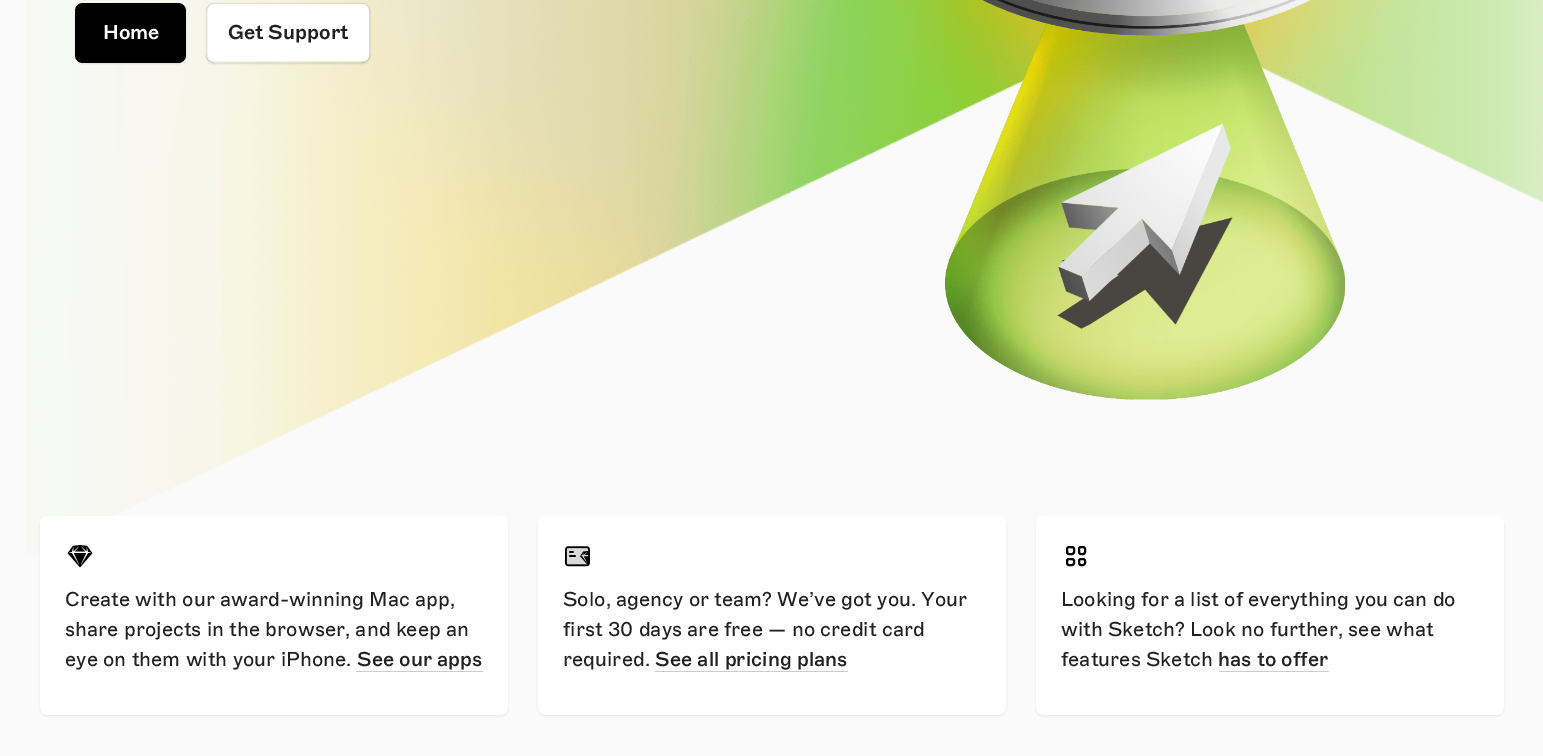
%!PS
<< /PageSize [1543 756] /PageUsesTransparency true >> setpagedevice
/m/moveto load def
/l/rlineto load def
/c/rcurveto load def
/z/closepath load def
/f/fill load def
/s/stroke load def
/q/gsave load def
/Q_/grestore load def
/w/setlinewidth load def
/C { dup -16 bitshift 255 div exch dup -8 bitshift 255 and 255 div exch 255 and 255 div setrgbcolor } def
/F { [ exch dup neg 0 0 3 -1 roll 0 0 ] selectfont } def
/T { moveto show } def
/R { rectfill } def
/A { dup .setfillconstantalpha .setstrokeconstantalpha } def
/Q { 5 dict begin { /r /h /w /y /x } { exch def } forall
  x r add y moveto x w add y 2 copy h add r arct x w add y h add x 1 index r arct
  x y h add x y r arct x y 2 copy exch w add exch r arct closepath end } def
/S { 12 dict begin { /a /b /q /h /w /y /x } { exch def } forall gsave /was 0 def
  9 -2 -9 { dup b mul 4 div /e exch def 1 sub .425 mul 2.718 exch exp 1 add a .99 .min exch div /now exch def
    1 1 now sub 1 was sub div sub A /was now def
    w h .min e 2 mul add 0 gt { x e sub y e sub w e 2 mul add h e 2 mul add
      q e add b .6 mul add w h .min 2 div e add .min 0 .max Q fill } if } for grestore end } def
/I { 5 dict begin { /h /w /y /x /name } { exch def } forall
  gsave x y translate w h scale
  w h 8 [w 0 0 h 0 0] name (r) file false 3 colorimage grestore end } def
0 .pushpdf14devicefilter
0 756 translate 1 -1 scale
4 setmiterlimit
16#FAFAFA C
0 0 1543 756 R
(1.rgb) 25 0 1518 557 I
16#000000 C
75 4 111 60 8 1 .1 S
75 3 111 60 8 Q f
/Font-SemiBold 20 F
16#FFFFFF C
(Home) 103 39 T
q
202 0 m 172 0 l 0 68 l -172 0 l z 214 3 m 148 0 l 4.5 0 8 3.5 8 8 c 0 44 l 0 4.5 -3.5 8 -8 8 c -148 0 l -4.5 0 -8 -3.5 -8 -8 c 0 -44 l 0 -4.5 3.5 -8 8 -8 c z eoclip newpath
16#000000 C
206 4 164 60 8 1 .1 S
Q_
208 4 161 57 6 Q f
0.08 A
16#000000 C
206.5 3.5 163 59 7.5 Q s
1 A
16#212123 C
(Get Support) 228 39 T
(3.rgb) 945 5 400 395 I
(2.rgb) 982 0 328 36 I
(5.rgb) 1057 217 176 112 I
(4.rgb) 1058 123 173 179 I
16#000000 C
40 518 468 198 8 1 .08 S
16#FFFFFF C
40 516 468 199 8 Q f
(6.rgb) 67 545 26 23 I
/Font-Regular 20 F
16#212123 C
(Create with our award-winning Mac app,) 65 606 T
(share projects in the browser, and keep an) 65 636 T
(eye on them with your iPhone.) 65 666 T
/Font-Medium 20 F
(See our apps) 357 666 T
16#CCCCCC C
356 671 127 1 R
16#000000 C
538 518 468 198 8 1 .08 S
16#FFFFFF C
538 516 468 199 8 Q f
(7.rgb) 565 546 25 21 I
/Font-Regular 20 F
16#212123 C
(Solo, agency or team? We’ve got you. Your) 563 606 T
(first 30 days are free — no credit card) 563 636 T
(required.) 563 666 T
/Font-Medium 20 F
(See all pricing plans) 655 666 T
16#CCCCCC C
655 671 193 1 R
16#000000 C
1036 518 468 198 8 1 .08 S
16#FFFFFF C
1036 516 468 199 8 Q f
16#000000 C
2 w
1067 547 7 7 2 Q s
1079 547 6 7 2 Q s
1067 559 7 6 2 Q s
1079 559 6 6 2 Q s
/Font-Regular 20 F
16#212123 C
(Looking for a list of everything you can do) 1061 606 T
(with Sketch? Look no further, see what) 1061 636 T
(features Sketch) 1061 666 T
/Font-Medium 20 F
(has to offer) 1218 666 T
16#CCCCCC C
1219 671 110 1 R
.poppdf14devicefilter showpage
